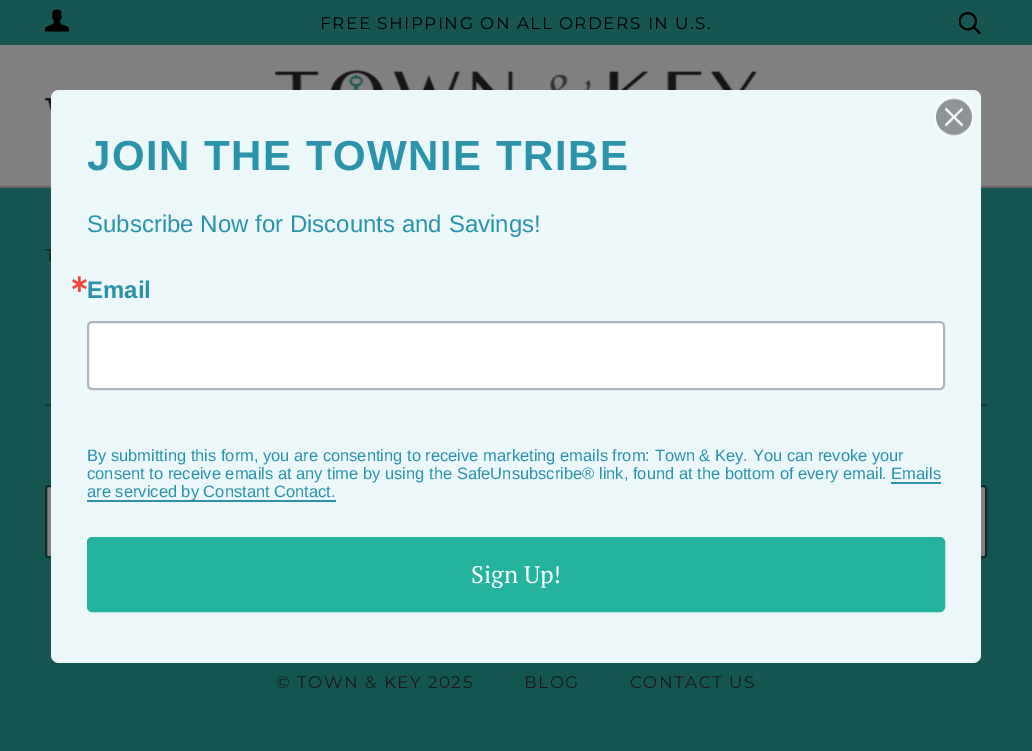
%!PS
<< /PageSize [1032 751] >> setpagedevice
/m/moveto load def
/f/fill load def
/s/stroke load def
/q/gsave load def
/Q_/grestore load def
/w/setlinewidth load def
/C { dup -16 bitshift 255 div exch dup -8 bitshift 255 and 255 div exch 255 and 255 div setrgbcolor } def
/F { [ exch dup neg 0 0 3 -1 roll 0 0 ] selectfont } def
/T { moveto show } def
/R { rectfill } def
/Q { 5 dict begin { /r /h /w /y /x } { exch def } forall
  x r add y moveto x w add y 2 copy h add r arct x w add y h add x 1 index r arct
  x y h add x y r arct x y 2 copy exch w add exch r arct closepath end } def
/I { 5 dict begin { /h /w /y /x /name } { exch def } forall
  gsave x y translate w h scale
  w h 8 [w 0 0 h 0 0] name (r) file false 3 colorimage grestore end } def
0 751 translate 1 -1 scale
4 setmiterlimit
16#165652 C
0 0 1032 751 R
(1.rgb) 45 9 24 23 I
/Montserrat-Thin 16.8 F
16#000000 C
320 29 m 1.5 0 (FREE SHIPPING ON ALL ORDERS IN U.S.) ashow
(2.rgb) 959 12 22 23 I
16#808080 C
0 45 1032 141 R
16#666666 C
0 186 1032 2 R
(3.rgb) 274 69 483 21 I
(4.rgb) 45 98 6 13 I
16#1A1A1A C
45 261 m 1.5 0 (T) ashow
16#183836 C
45 404 942 2 R
16#808080 C
46 486 940 71 2 Q q f Q_
16#0C2D2B C
2 w
s
16#ECF7FA C
51 90 930 573 8 Q f
(5.rgb) 934 97 40 40 I
/LiberationSans-Bold 42 F
16#2B94AB C
87 170 m 1.5 0 (JOIN THE TOWNIE TRIBE) ashow
/LiberationSans-Regular 24 F
(Subscribe Now for Discounts and Savings!) 87 232 T
/DejaVuSans-Bold 24 F
16#F5463B C
(∗) 69 292 T
/LiberationSans-Bold 24 F
16#2B94AB C
(Email) 87 298 T
16#FFFFFF C
88 322 856 67 4 Q q f Q_
16#B0B6BB C
s
/LiberationSans-Regular 16.5 F
16#2B94AB C
(By submitting this form, you are consenting to receive marketing emails from: Town & Key. You can revoke your) 87 461 T
(consent to receive emails at any time by using the SafeUnsubscribe® link, found at the bottom of every email. Emails) 87 479 T
87 500 249 2 R
(are serviced by Constant Contact.) 87 497 T
891 482 50 2 R
16#24B39F C
88 538 856 73 4 Q q f Q_
s
/PTSerif-Regular 24 F
16#FFFFFF C
(Sign Up!) 471 583 T
/Montserrat-Thin 16.8 F
16#1A1A1A C
276 688 m 1.5 0 (© TOWN & KEY 2025) ashow
524 688 m 1.5 0 (BLOG) ashow
630 688 m 1.5 0 (CONTACT US) ashow
showpage
